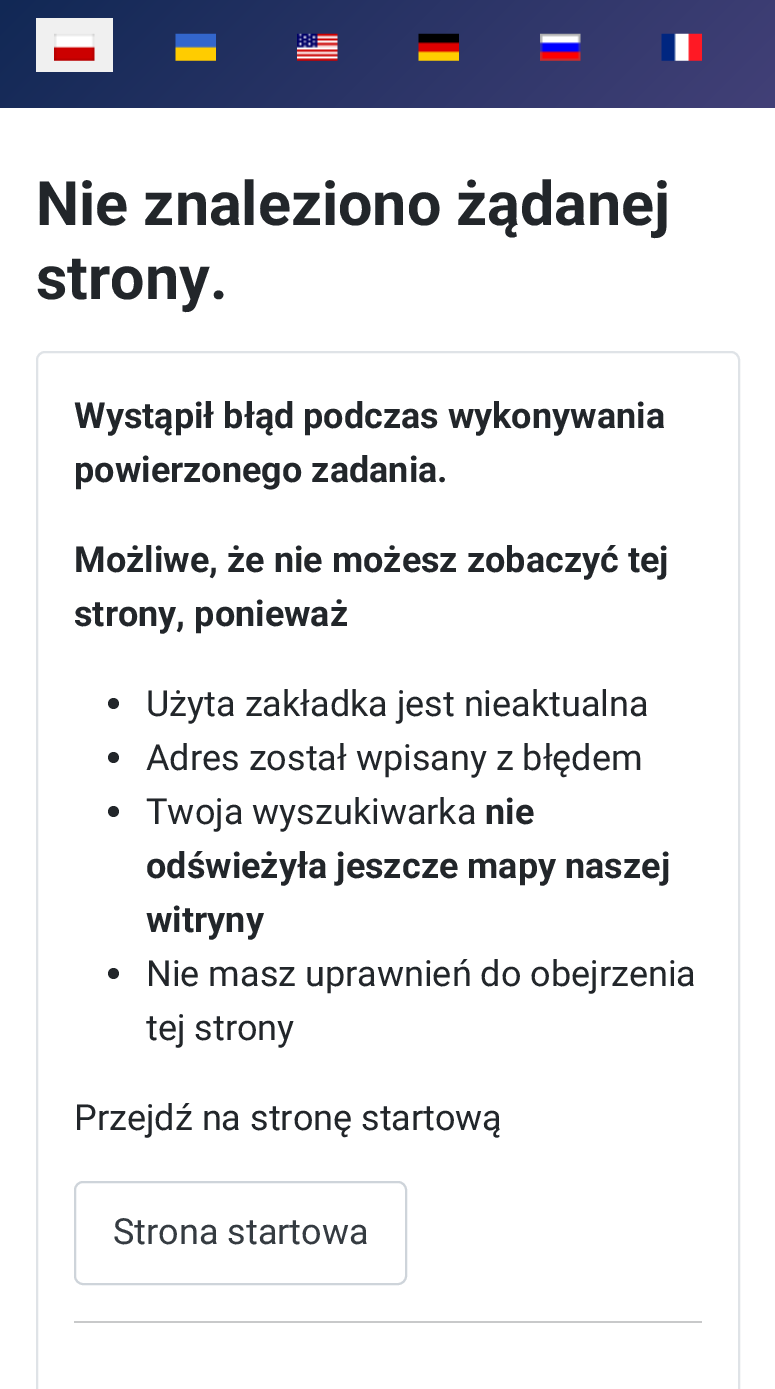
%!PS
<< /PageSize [775 1389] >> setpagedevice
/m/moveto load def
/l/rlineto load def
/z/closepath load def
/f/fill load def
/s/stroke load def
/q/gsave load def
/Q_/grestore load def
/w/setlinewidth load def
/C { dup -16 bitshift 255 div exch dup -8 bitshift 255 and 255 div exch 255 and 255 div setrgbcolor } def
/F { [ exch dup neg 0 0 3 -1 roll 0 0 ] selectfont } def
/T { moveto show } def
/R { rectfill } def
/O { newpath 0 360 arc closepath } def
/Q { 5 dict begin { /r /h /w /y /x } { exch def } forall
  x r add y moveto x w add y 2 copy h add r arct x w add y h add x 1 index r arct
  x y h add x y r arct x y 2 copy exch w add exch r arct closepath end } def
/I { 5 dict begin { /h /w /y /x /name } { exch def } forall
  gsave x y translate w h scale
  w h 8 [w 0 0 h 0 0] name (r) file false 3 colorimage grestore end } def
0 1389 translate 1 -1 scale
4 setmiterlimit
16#FFFFFF C
0 0 775 1389 R
q 0 0 m 775 0 l 0 108 l -775 0 l z clip newpath
<< /ShadingType 2 /ColorSpace /DeviceRGB /Coords [167 -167 609 275] /Extend [true true] /Function << /FunctionType 2 /Domain [0 1] /C0 [.067 .157 .333] /C1 [.259 .251 .467] /N 1 >> >> shfill Q_
16#F0F0F0 C
36 18 77 54 R
(1.rgb) 54 33 41 28 I
(2.rgb) 175 33 41 28 I
(3.rgb) 297 33 41 28 I
(4.rgb) 418 33 41 28 I
(5.rgb) 540 33 41 28 I
(6.rgb) 661 33 41 28 I
/Roboto-Bold 61.1 F
16#22262A C
(Nie znaleziono żądanej) 36 225 T
(strony.) 36 299 T
16#DFE3E7 C
2 w
37 352 702 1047 8 Q s
/Roboto-Bold 36 F
16#22262A C
(Wystąpił błąd podczas wykonywania) 74 428 T
(powierzonego zadania.) 74 482 T
(Możliwe, że nie możesz zobaczyć tej) 74 572 T
(strony, ponieważ) 74 626 T
113.5 703.5 5.5 O f
/Roboto-Regular 36 F
(Użyta zakładka jest nieaktualna) 146 716 T
113.5 757.5 5.5 O f
(Adres został wpisany z błędem) 146 770 T
113.5 811.5 5.5 O f
(Twoja wyszukiwarka) 146 824 T
/Roboto-Bold 36 F
(nie) 485 824 T
(odświeżyła jeszcze mapy naszej) 146 878 T
(witryny) 146 932 T
113.5 973.5 5.5 O f
/Roboto-Regular 36 F
(Nie masz uprawnień do obejrzenia) 146 986 T
(tej strony) 146 1040 T
(Przejdź na stronę startową) 74 1130 T
16#CED4DA C
75 1182 331 102 8 Q s
16#353B41 C
(Strona startowa) 113 1244 T
16#C8C9CA C
74 1321 628 2 R
showpage
